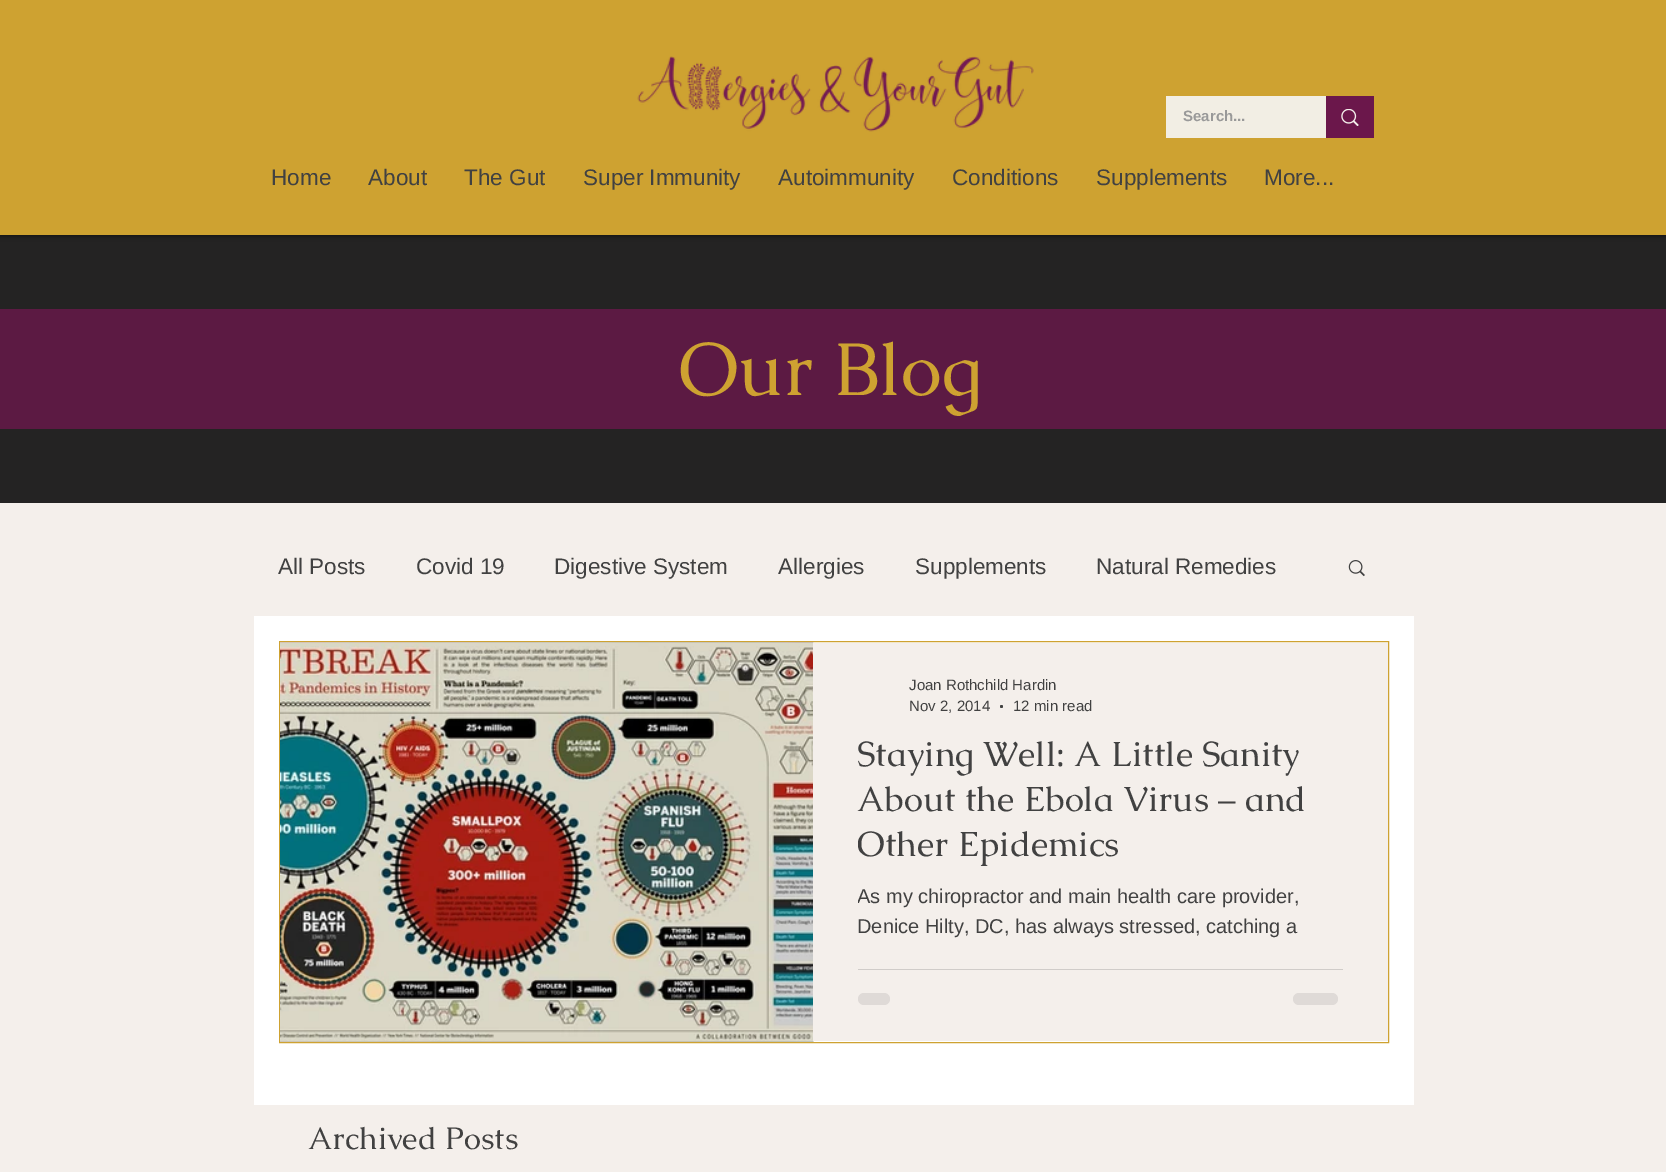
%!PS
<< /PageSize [1666 1172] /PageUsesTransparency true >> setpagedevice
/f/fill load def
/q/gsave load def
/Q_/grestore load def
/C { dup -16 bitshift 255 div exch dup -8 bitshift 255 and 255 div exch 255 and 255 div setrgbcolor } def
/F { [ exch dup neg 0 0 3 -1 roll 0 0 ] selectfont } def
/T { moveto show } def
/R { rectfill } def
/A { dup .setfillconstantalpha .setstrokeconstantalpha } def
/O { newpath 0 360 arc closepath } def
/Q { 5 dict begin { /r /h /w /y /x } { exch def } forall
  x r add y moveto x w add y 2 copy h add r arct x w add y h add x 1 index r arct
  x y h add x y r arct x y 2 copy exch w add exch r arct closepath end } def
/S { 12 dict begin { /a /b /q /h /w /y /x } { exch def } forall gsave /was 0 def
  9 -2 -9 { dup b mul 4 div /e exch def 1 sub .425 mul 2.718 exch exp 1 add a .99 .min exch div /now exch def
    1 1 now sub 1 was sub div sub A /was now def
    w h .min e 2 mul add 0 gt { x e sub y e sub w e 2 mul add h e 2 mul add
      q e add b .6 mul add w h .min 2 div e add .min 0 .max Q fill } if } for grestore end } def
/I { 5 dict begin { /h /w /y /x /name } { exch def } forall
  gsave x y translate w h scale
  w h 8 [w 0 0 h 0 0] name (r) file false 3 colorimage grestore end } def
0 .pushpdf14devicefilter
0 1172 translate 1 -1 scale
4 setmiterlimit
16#F4EFEB C
0 0 1666 1172 R
16#242323 C
0 235 1666 268 R
16#000000 C
0 0 1666 235 0 3 .7 S
16#CEA231 C
0 0 1666 235 R
(1.rgb) 637 56 397 76 I
16#F2EEE4 C
1166 96 160 42 R
/LiberationSans-Bold 15 F
16#999999 C
(Search...) 1183 121 T
16#6B174B C
1326 96 48 42 R
(2.rgb) 1341 109 18 17 I
/LiberationSans-Regular 22.5 F
16#414141 C
(Home) 271 185 T
(About) 368 185 T
(The Gut) 464 185 T
(Super Immunity) 583 185 T
(Autoimmunity) 778 185 T
(Conditions) 952 185 T
(Supplements) 1096 185 T
(More...) 1264 185 T
16#5C1A43 C
0 309 1666 120 R
/Caudex-Regular 75 F
16#CEA231 C
(Our Blog) 679 395 T
16#FFFFFF C
254 616 1160 489 R
/LiberationSans-Regular 22.5 F
16#414141 C
(All Posts) 278 574 T
(Covid 19) 416 574 T
(Digestive System) 554 574 T
(Allergies) 778 574 T
(Supplements) 915 574 T
(Natural Remedies) 1096 574 T
(3.rgb) 1348 560 17 17 I
16#CEA231 C
279.5 641.5 1109 401 rectstroke
(4.rgb) 280 642 534 400 I
(5.rgb) 280 643 533 398 I
16#F4EFEB C
813 643 575 398 R
/LiberationSans-Regular 15 F
16#414141 C
(Joan Rothchild Hardin) 909 690 T
(Nov 2, 2014) 909 711 T
1001.5 706.5 1.5 O f
(12 min read) 1013 711 T
/Caudex-Regular 35 F
(Staying Well: A Little Sanity) 857 766 T
(About the Ebola Virus – and) 857 811 T
q
858 731 485 135 rectclip
(Other Epidemics) 857 856 T
Q_
q
858 881 485 73 rectclip
/LiberationSans-Regular 20 F
(As my chiropractor and main health care provider,) 857 903 T
Q_
/LiberationSans-Regular 20 F
(Denice Hilty, DC, has always stressed, catching a) 857 933 T
16#D0CCC9 C
858 969 485 1 R
16#DFDAD7 C
858 993 32 12 6 Q f
1293 993 45 12 6 Q f
/Caudex-Regular 31.25 F
16#414141 C
(Archived Posts) 308 1149 T
.poppdf14devicefilter showpage
